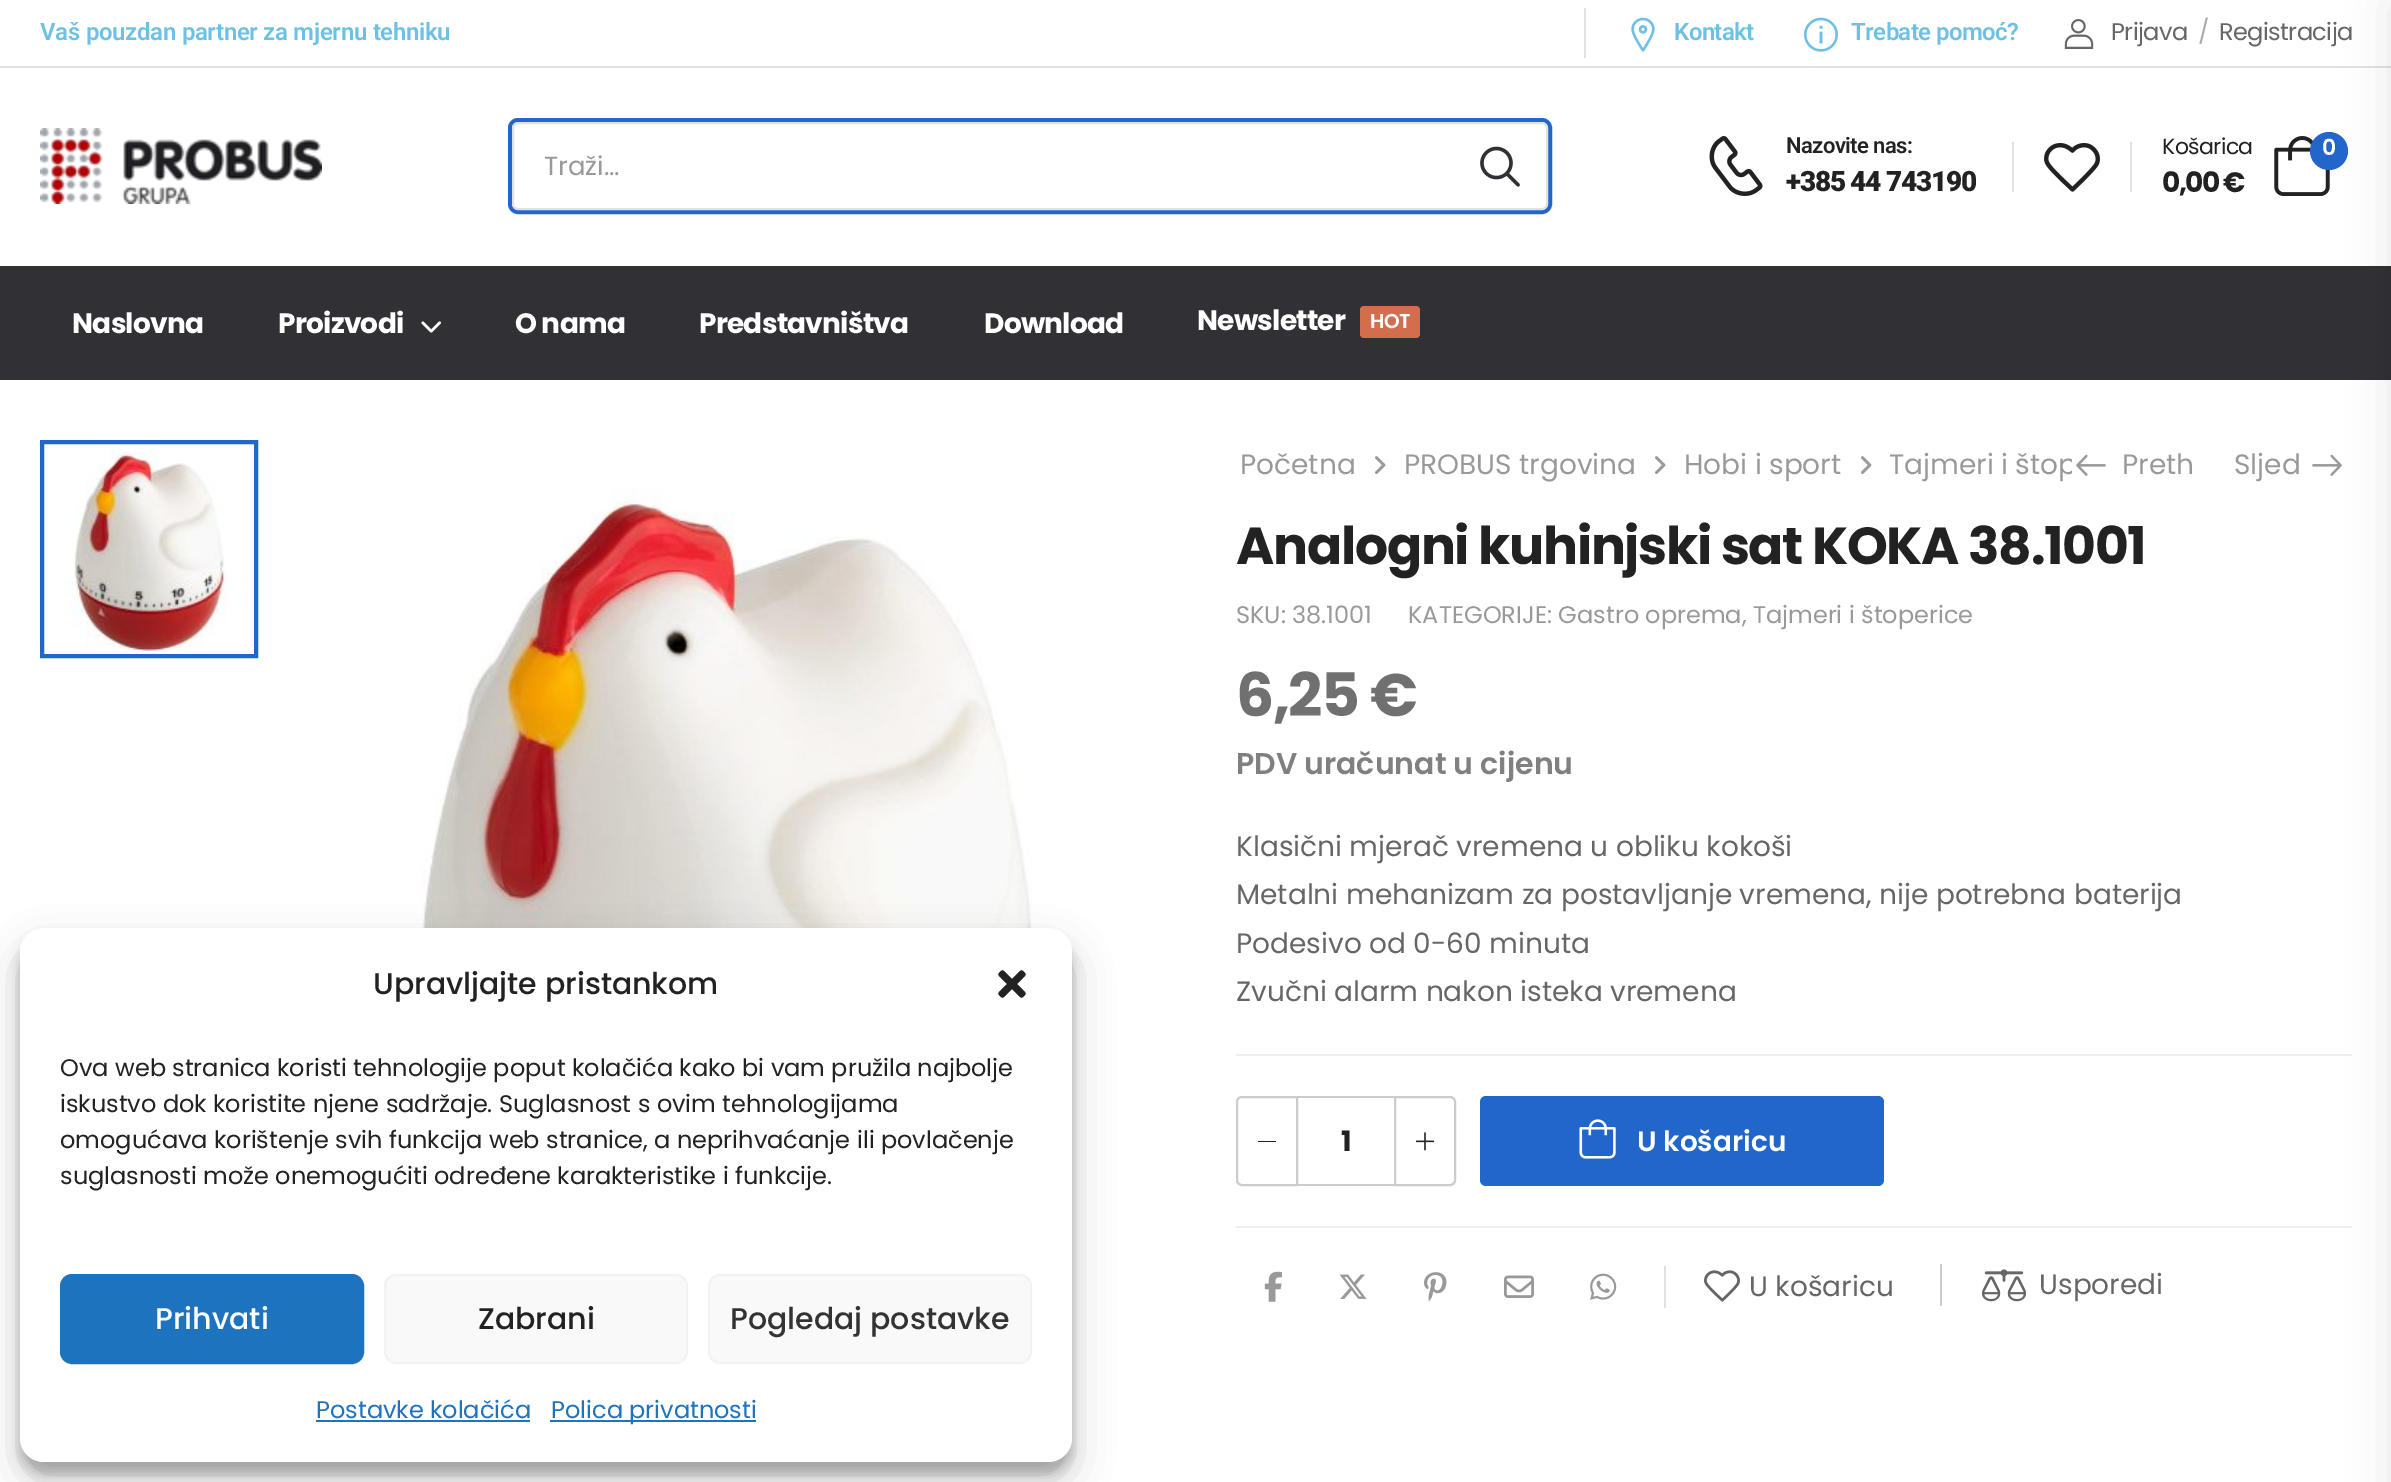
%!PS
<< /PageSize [2391 1482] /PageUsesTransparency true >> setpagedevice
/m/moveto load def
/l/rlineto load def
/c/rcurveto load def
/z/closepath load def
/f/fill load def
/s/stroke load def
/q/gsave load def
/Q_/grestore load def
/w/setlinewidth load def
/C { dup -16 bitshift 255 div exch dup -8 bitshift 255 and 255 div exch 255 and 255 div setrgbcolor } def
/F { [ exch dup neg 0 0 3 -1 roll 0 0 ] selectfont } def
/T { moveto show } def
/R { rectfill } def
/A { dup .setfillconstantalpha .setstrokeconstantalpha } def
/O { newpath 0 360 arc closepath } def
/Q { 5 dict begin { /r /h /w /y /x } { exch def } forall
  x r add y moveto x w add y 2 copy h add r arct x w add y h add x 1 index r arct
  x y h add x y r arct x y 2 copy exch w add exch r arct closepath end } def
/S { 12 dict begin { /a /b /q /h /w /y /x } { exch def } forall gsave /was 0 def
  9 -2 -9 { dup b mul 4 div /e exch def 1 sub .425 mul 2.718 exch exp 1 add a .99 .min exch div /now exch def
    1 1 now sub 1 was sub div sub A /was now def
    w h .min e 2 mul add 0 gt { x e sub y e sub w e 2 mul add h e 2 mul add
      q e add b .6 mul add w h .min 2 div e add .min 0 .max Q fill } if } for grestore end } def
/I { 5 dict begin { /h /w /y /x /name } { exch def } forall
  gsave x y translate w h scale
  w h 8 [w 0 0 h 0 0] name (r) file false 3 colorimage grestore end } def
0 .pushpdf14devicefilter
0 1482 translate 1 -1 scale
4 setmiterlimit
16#FFFFFF C
0 0 2391 1482 R
16#E1E1E1 C
0 66 2391 2 R
/Roboto-SemiBold 24 F
16#6EC1E4 C
40 40 m -.3 0 (Vaš pouzdan partner za mjernu tehniku) ashow
16#E1E1E1 C
1584 8 2 50 R
(1.rgb) 1631 17 24 35 I
16#6EC1E4 C
1674 40 m -.6 0 (Kontakt) ashow
(2.rgb) 1804 17 34 35 I
1851 40 m -.6 0 (Trebate pomoć?) ashow
(3.rgb) 2064 19 30 30 I
/Poppins-Regular 24 F
16#666666 C
2111 40 m -.6 0 (Prijava) ashow
16#AAAAAA C
2198 40 m -.6 0 (/) ashow
16#666666 C
2219 40 m -.6 0 (Registracija) ashow
(4.rgb) 40 128 282 76 I
16#2266CC C
4 w
510 120 1040 92 8 Q s
16#FFFFFF C
513 123 1034 86 5 Q q f Q_
16#E1E1E1 C
2 w
s
/Poppins-Regular 26 F
16#999999 C
(Traži...) 544 175 T
(5.rgb) 1480 146 40 41 I
(6.rgb) 1709 136 54 60 I
/Roboto-SemiBold 22 F
16#222222 C
1786 153 m -.6 0 (Nazovite nas:) ashow
/Roboto-Black 28 F
1786 191 m -1.25 0 (+385 44 743190) ashow
16#E1E1E1 C
2012 142 2 50 R
(7.rgb) 2044 143 56 49 I
2130 142 2 50 R
/Poppins-Regular 22 F
16#222222 C
2162 154 m -.6 0 (Košarica) ashow
/Poppins-Bold 28 F
2162 192 m -1.5 0 (0,00 €) ashow
(8.rgb) 2274 136 56 60 I
16#2266CC C
2329 151 19 O f
/Poppins-SemiBold 22 F
16#FFFFFF C
2322 155 m -.6 0 (0) ashow
16#313135 C
0 266 2391 114 R
(14.rgb) 2312 454 30 22 I
16#EEEEEE C
1236 1054 1116 2 R
1236 1226 1116 2 R
16#000000 C
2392 4 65 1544 0 22 .1 S
/Poppins-Bold 28 F
16#FFFFFF C
72 333 m -.75 0 (Naslovna) ashow
278 333 m -.75 0 (Proizvodi) ashow
(9.rgb) 421 321 20 12 I
515 333 m -.75 0 (O nama) ashow
699 333 m -.75 0 (Predstavništva) ashow
984 333 m -.75 0 (Download) ashow
1197 330 m -.75 0 (Newsletter) ashow
16#D26E4B C
1360 306 60 32 4 Q f
/Poppins-SemiBold 20 F
16#FFFFFF C
1370 328 m -.75 0 (HOT) ashow
(10.rgb) 64 444 163 210 I
16#2266CC C
4 w
42 442 214 214 rectstroke
(11.rgb) 421 487 623 441 I
/Poppins-Regular 28 F
16#999999 C
(Početna) 1240 474 T
(12.rgb) 1375 456 11 18 I
(PROBUS trgovina) 1404 474 T
(12.rgb) 1655 456 11 18 I
(Hobi i sport) 1684 474 T
(12.rgb) 1861 456 11 18 I
q
1240 440 832 70 rectclip
(Tajmeri i štop) 1889 474 T
Q_
(13.rgb) 2076 454 30 22 I
(Preth) 2122 474 T
(Sljed) 2234 474 T
/Poppins-Bold 52 F
16#222222 C
1236 564 m -1.3 0 (Analogni kuhinjski sat KOKA 38.1001) ashow
/Poppins-Regular 24 F
16#999999 C
(SKU: 38.1001) 1236 623 T
(KATEGORIJE: Gastro oprema, Tajmeri i štoperice) 1408 623 T
/Poppins-Bold 60 F
16#707070 C
1236 716 m -1.5 0 (6,25 €) ashow
/Poppins-SemiBold 30 F
16#808080 C
(PDV uračunat u cijenu) 1236 774 T
/Poppins-Regular 28 F
16#666666 C
(Klasični mjerač vremena u obliku kokoši) 1236 856 T
(Metalni mehanizam za postavljanje vremena, nije potrebna baterija) 1236 904 T
(Podesivo od 0-60 minuta) 1236 953 T
(Zvučni alarm nakon isteka vremena) 1236 1001 T
16#CCCCCC C
2 w
1242 1097 m 55 0 l 0 88 l -55 0 l -3 0 -5 -2 -5 -5 c 0 -78 l 0 -3 2 -5 5 -5 c z s
16#222222 C
1258 1141 18 1 R
16#CCCCCC C
1298 1096 96 2 R
1298 1184 96 2 R
/Poppins-Bold 28 F
16#222222 C
(1) 1341 1151 T
16#CCCCCC C
1395 1097 m 55 0 l 3 0 5 2 5 5 c 0 78 l 0 3 -2 5 -5 5 c -55 0 l z s
(15.rgb) 1416 1132 18 19 I
16#2266CC C
1480 1096 404 90 6 Q f
(16.rgb) 1579 1119 37 40 I
/Poppins-SemiBold 28 F
16#FFFFFF C
(U košaricu) 1637 1151 T
16#E1E1E1 C
1664 1266 2 42 R
(17.rgb) 1264 1271 18 31 I
(18.rgb) 1339 1274 28 25 I
(19.rgb) 1424 1272 23 30 I
(20.rgb) 1504 1275 30 23 I
(21.rgb) 1590 1273 27 27 I
(22.rgb) 1704 1270 36 32 I
/Poppins-Regular 28 F
16#666666 C
(U košaricu) 1749 1296 T
16#CCCCCC C
1940 1264 2 42 R
(23.rgb) 1982 1269 44 33 I
16#666666 C
(Usporedi) 2039 1294 T
16#000000 C
20 940 1052 534 24 6 .23 S
20 948 1052 534 24 20 .19 S
16#FFFFFF C
20 928 1052 534 24 Q f
/Poppins-Medium 30 F
16#222222 C
(Upravljajte pristankom) 373 994 T
(24.rgb) 998 970 28 28 I
/Poppins-Regular 24 F
(Ova web stranica koristi tehnologije poput kolačića kako bi vam pružila najbolje) 60 1076 T
(iskustvo dok koristite njene sadržaje. Suglasnost s ovim tehnologijama) 60 1112 T
(omogućava korištenje svih funkcija web stranice, a neprihvaćanje ili povlačenje) 60 1148 T
(suglasnosti može onemogućiti određene karakteristike i funkcije.) 60 1184 T
16#1E73BE C
61 1275 302 88 11 Q q f Q_
s
/Poppins-Medium 30 F
16#FFFFFF C
(Prihvati) 155 1329 T
16#F9F9F9 C
385 1275 302 88 11 Q q f Q_
16#F2F2F2 C
s
16#222222 C
(Zabrani) 478 1329 T
16#F9F9F9 C
709 1275 322 88 11 Q q f Q_
16#F2F2F2 C
s
16#333333 C
(Pogledaj postavke) 730 1329 T
/Poppins-Regular 24 F
16#1E73BE C
(Postavke kolačića) 316 1418 T
316 1420 214 2 R
550 1420 206 2 R
(Polica privatnosti) 551 1418 T
.poppdf14devicefilter showpage
